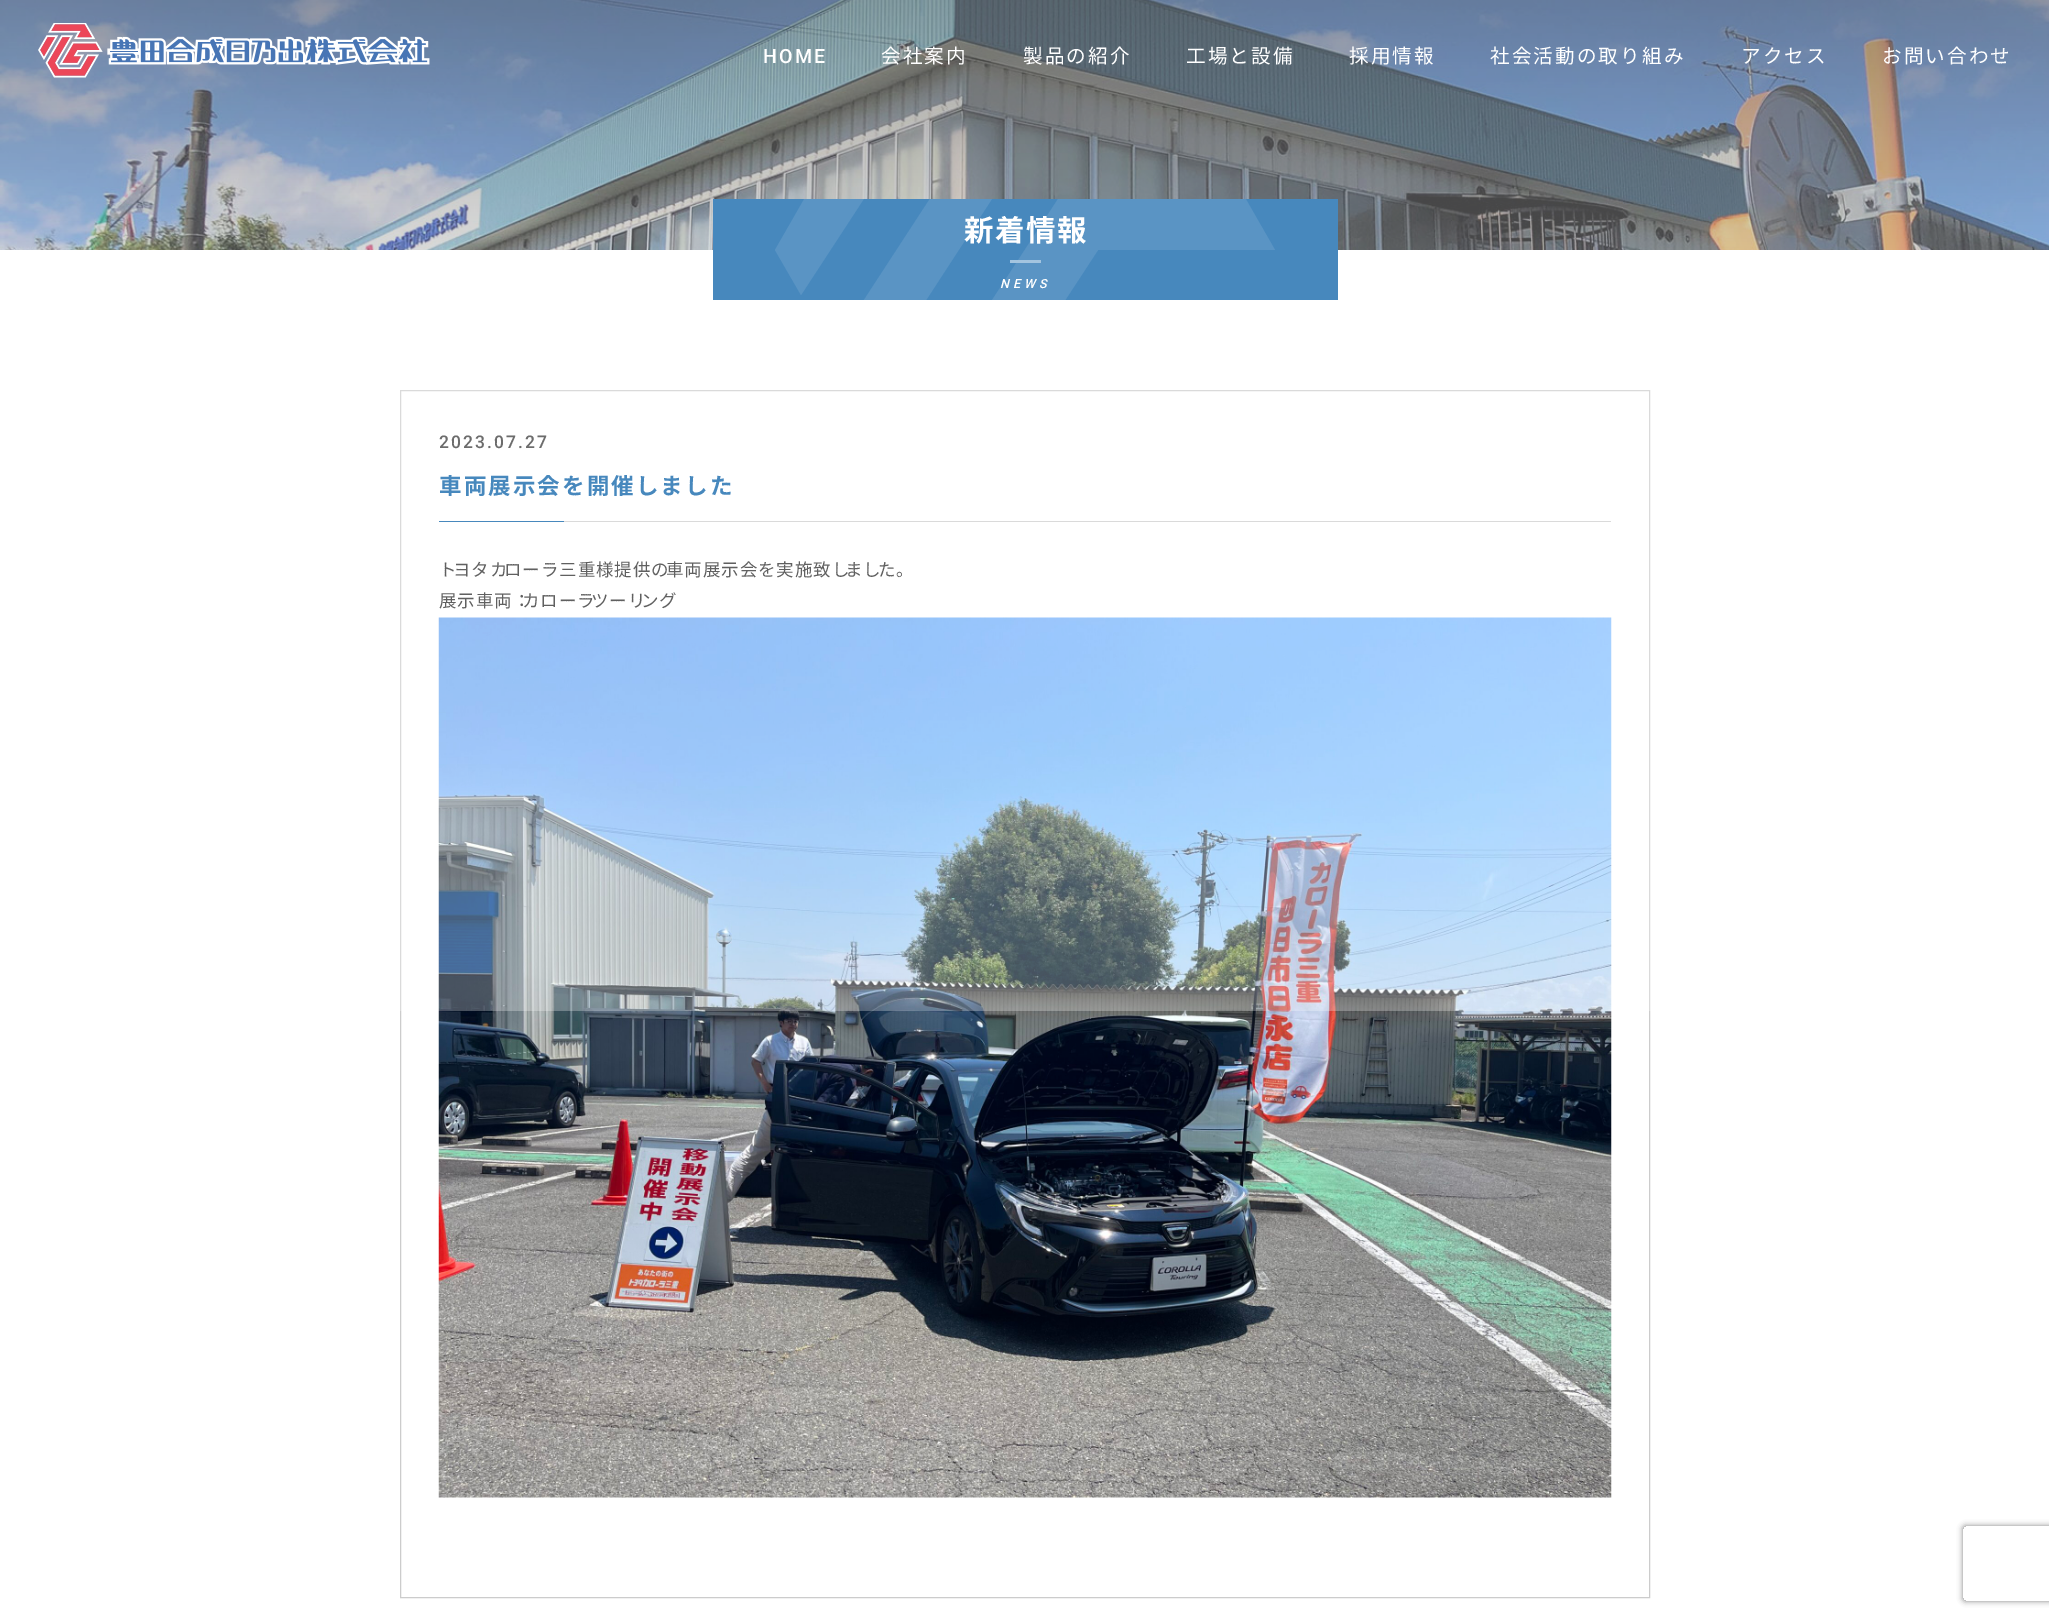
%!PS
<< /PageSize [2049 1618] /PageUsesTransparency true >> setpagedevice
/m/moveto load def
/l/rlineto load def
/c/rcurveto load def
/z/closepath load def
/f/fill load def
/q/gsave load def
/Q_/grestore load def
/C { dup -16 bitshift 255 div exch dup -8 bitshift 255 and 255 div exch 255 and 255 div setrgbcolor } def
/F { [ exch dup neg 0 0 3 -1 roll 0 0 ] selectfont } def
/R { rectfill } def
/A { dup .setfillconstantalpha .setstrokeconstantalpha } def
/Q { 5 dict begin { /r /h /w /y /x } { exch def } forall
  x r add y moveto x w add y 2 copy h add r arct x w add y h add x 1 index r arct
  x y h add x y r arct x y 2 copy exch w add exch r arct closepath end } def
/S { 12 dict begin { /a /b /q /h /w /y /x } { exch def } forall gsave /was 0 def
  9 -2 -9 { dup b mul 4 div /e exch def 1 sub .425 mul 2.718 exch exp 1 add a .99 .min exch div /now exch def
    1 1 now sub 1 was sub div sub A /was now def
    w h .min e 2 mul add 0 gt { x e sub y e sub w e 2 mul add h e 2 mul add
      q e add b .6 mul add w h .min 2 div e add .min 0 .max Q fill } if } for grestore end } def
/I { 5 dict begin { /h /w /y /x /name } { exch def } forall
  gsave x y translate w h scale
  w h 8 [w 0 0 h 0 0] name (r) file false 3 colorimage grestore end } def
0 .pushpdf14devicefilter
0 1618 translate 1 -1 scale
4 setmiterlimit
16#FFFFFF C
0 0 2049 1618 R
(1.rgb) 0 0 2049 250 I
(2.rgb) 38 23 392 55 I
/Roboto-Medium 19.6 F
763 63 m 2.1 0 (HOME) ashow
/NotoSansJP-Regular 19.6 F
881 63 m 2.1 0 (会社案内) ashow
1023 63 m 2.1 0 (製品の紹介) ashow
1186 63 m 2.1 0 (工場と設備) ashow
1349 63 m 2.1 0 (採用情報) ashow
1490 63 m 2.1 0 (社会活動の取り組み) ashow
1741 63 m 2.1 0 (アクセス) ashow
1882 63 m 2.1 0 (お問い合わせ) ashow
16#005AA4 C
713 199 625 101 R
q
775 199 500 101 rectclip
16#1A6BAD C
1275 250 m -31 -54 l -184 0 l -107 164 l 126 0 l 35 -55 l -52 0 l 36 -55 l z f
1180 305 m -71 110 l -183 0 l -35 -61 l 138 -212 l -62 0 l -135 207 l 68 117 l 250 0 l 93 -161 l z f
901 142 m -64 0 l -62 108 l 26 45 l z f
Q_
/NotoSansJP-Bold 29.5 F
16#FFFFFF C
964 241 m 1.5 0 (新着情報) ashow
16#80ADD2 C
1010 260 31 3 R
/Roboto-MediumItalic 12.5 F
16#FFFFFF C
1000 288 m 4 0 (NEWS) ashow
16#CCCCCC C
400.5 390.5 1249 1207 rectstroke
564 521 1047 1 R
/Roboto-Medium 17.5 F
16#333333 C
439 448 m 2.1 0 (2023.07.27) ashow
/NotoSansJP-Bold 22.5 F
16#005AA4 C
439 494 m 2.1 0 (車両展示会を開催しました) ashow
439 521 125 1 R
/NotoSansJP-Regular 17.5 F
16#232323 C
439 576 m .9 0 (ト) ashow
453 576 m .9 0 (ヨタカ) ashow
504 576 m .9 0 (ローラ三重様提供の) ashow
666 576 m .9 0 (車両展示会を実施致し) ashow
845 576 m .9 0 (まし) ashow
878 576 m .9 0 (た。) ashow
439 607 m .9 0 (展示車両：) ashow
522 607 m .9 0 (カローラ) ashow
591 607 m .9 0 (ツーリ) ashow
641 607 m .9 0 (ング) ashow
(3.rgb) 438 617 1174 881 I
0.28 A
16#FFFFFF C
0 0 2049 1011 R
q
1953 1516 m 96 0 l 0 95 l -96 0 l z 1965.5 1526 m 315 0 l 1.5 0 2.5 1 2.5 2.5 c 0 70 l 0 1.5 -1 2.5 -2.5 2.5 c -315 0 l -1.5 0 -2.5 -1 -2.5 -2.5 c 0 -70 l 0 -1.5 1 -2.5 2.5 -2.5 c z eoclip newpath
1 A
16#808080 C
1963 1526 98 75 2.5 3 1 S
Q_
.poppdf14devicefilter showpage
